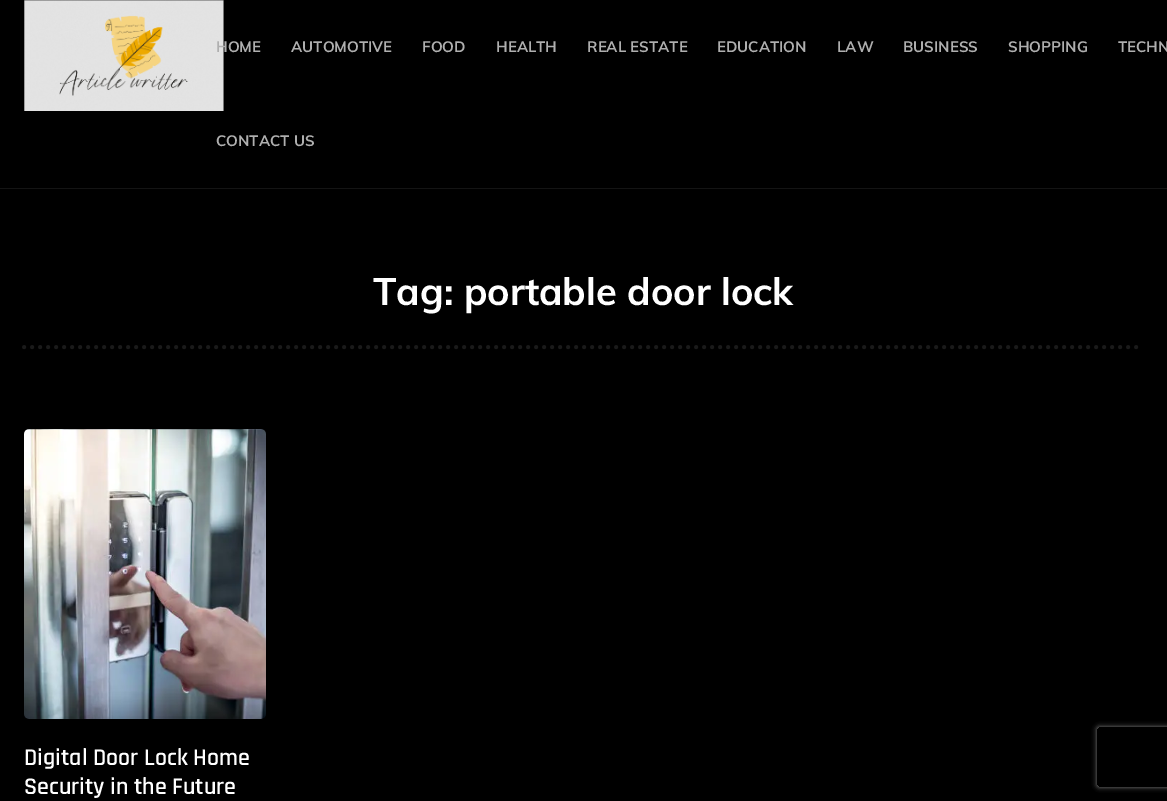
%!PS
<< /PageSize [1167 801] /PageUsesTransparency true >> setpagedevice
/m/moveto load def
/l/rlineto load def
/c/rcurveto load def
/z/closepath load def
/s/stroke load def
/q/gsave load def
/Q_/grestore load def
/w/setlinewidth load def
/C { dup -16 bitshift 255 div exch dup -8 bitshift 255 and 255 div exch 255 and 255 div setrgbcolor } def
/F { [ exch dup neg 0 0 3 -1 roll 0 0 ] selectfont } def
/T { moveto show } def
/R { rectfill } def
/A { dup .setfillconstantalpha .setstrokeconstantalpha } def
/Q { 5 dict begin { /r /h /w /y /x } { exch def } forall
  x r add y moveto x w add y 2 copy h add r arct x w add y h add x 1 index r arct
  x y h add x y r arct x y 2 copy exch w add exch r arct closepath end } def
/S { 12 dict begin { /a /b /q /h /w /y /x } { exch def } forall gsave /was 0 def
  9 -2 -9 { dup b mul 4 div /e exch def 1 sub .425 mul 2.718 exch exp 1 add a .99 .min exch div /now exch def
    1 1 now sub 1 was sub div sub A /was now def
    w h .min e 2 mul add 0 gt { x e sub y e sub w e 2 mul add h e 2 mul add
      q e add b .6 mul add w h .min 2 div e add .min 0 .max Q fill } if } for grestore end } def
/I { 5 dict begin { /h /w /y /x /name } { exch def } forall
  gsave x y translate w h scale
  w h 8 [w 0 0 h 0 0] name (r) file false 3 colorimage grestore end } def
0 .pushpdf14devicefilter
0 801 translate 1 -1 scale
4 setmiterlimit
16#000000 C
0 0 1167 801 R
16#141414 C
0 188 1167 1 R
(1.rgb) 24 0 200 111 I
/Muli-Bold 15 F
16#AFAFAF C
(HOME) 216 52 T
(AUTOMOTIVE) 291 52 T
(FOOD) 422 52 T
(HEALTH) 496 52 T
(REAL ESTATE) 587 52 T
(EDUCATION) 717 52 T
(LAW) 837 52 T
(BUSINESS) 903 52 T
(SHOPPING) 1008 52 T
(TECHN) 1118 52 T
(CONTACT US) 216 146 T
/Muli-Bold 38 F
16#FFFFFF C
(Tag: portable door lock) 373 305 T
16#1A1A1A C
4 w
1 setlinecap
[0 8] 0 setdash
24 347 m 1119 0 l s
(2.rgb) 24 429 242 290 I
/Rajdhani-SemiBold 24 F
16#FFFFFF C
(Digital Door Lock Home) 24 765 T
(Security in the Future) 24 794 T
q
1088 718 m 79 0 l 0 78 l -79 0 l z 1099 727 m 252 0 l 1 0 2 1 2 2 c 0 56 l 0 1 -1 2 -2 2 c -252 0 l -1 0 -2 -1 -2 -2 c 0 -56 l 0 -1 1 -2 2 -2 c z eoclip newpath
16#808080 C
1097 727 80 60 2 2.5 1 S
Q_
.poppdf14devicefilter showpage
